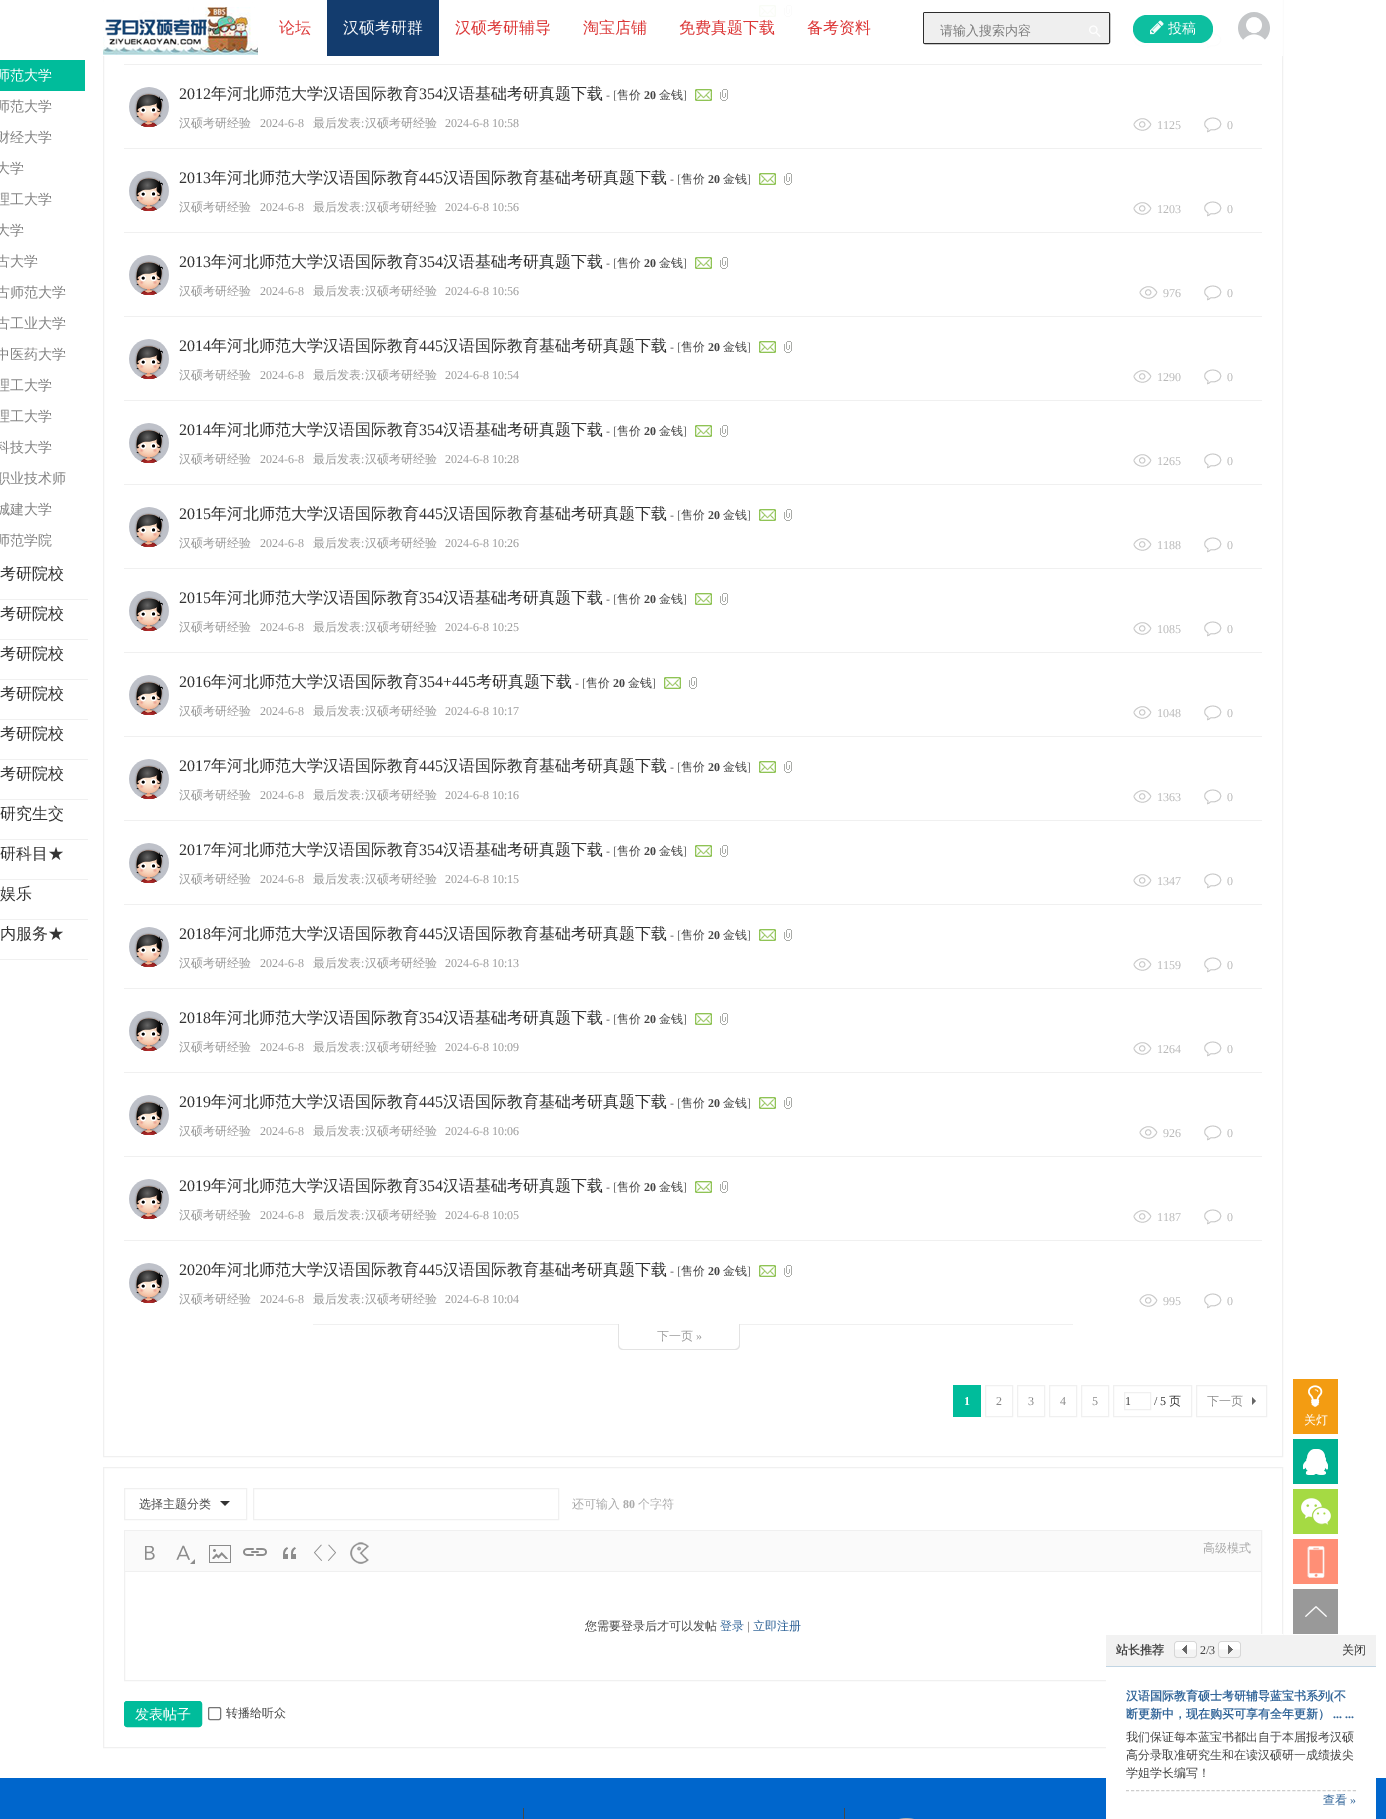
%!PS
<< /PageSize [1386 1819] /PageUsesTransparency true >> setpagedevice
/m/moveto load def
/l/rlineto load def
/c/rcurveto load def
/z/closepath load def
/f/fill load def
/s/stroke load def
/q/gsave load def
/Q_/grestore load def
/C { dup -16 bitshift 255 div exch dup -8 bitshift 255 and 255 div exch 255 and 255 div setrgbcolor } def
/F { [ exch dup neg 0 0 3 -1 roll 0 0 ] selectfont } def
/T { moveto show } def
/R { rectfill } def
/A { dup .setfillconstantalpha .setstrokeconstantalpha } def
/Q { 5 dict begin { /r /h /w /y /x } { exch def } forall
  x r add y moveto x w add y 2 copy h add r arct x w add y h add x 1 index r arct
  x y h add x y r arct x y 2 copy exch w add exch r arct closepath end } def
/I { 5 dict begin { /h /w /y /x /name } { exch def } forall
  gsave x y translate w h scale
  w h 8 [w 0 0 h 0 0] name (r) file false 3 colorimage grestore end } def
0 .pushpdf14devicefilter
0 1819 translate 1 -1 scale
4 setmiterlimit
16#FFFFFF C
0 0 1386 1819 R
16#F0F0F0 C
103.5 -.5 1179 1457 rectstroke
(5.rgb) 129 3 40 40 I
(6.rgb) 759 5 17 12 I
(7.rgb) 784 5 8 12 I
(8.rgb) 1133 34 19 13 I
(9.rgb) 1204 33 18 16 I
0.95 A
16#FFFFFF C
103 0 1180 56 R
1 A
(1.rgb) 103 2 155 53 I
/WenQuanYiZenHei-Medium 16 F
16#DC3838 C
(论坛) 279 33 T
0.95 A
16#063266 C
327 0 112 56 R
1 A
16#F3F5F8 C
(汉硕考研群) 343 33 T
16#DC3838 C
(汉硕考研辅导) 455 33 T
(淘宝店铺) 583 33 T
(免费真题下载) 679 33 T
(备考资料) 807 33 T
16#2D2D2D C
923.5 12.5 186 31 1.5 Q s
16#EFEFEF C
924 13 185 30 1 Q f
/WenQuanYiZenHei-Medium 13 F
16#7C7C7C C
(请输入搜索内容) 940 35 T
(2.rgb) 1089 25 12 12 I
0.95 A
16#00BC9B C
1133 15 80 28 14 Q f
1 A
(3.rgb) 1150 20 14 15 I
/WenQuanYiZenHei-Medium 14 F
16#FFFFFF C
(投稿) 1168 33 T
(4.rgb) 1238 12 32 28 I
16#00BC9B C
0 60 85 31 R
16#FFFFFF C
(师范大学) -4 80 T
16#828282 C
(师范大学) -4 111 T
(财经大学) -4 142 T
(大学) -4 173 T
(理工大学) -4 204 T
(大学) -4 235 T
(古大学) -4 266 T
(古师范大学) -4 297 T
(古工业大学) -4 328 T
(中医药大学) -4 359 T
(理工大学) -4 390 T
(理工大学) -4 421 T
(科技大学) -4 452 T
(职业技术师) -4 483 T
(城建大学) -4 514 T
(师范学院) -4 545 T
16#F0F0F0 C
0 599 88 1 R
/WenQuanYiZenHei-Medium 16 F
16#333333 C
(考研院校) 0 579 T
16#F0F0F0 C
0 639 88 1 R
16#333333 C
(考研院校) 0 619 T
16#F0F0F0 C
0 679 88 1 R
16#333333 C
(考研院校) 0 659 T
16#F0F0F0 C
0 719 88 1 R
16#333333 C
(考研院校) 0 699 T
16#F0F0F0 C
0 759 88 1 R
16#333333 C
(考研院校) 0 739 T
16#F0F0F0 C
0 799 88 1 R
16#333333 C
(考研院校) 0 779 T
16#F0F0F0 C
0 839 88 1 R
16#333333 C
(研究生交) 0 819 T
16#F0F0F0 C
0 879 88 1 R
16#333333 C
(研科目★) 0 859 T
16#F0F0F0 C
0 919 88 1 R
16#333333 C
(娱乐) 0 899 T
16#F0F0F0 C
0 959 88 1 R
16#333333 C
(内服务★) 0 939 T
16#F0F0F0 C
124 64 1138 1 R
/LiberationSerif-Regular 16 F
16#333333 C
(2012) 179 99 T
/WenQuanYiZenHei-Medium 16 F
(年河北师范大学汉语国际教育) 211 99 T
/LiberationSerif-Regular 16 F
(354) 419 99 T
/WenQuanYiZenHei-Medium 16 F
(汉语基础考研真题下载) 443 99 T
/LiberationSerif-Regular 12 F
16#444444 C
(- [) 606 99 T
/WenQuanYiZenHei-Medium 12 F
(售价) 617 99 T
/LiberationSerif-Bold 12 F
(20) 644 99 T
/WenQuanYiZenHei-Medium 12 F
(金钱) 659 99 T
/LiberationSerif-Regular 12 F
(]) 683 99 T
(6.rgb) 695 89 17 12 I
(7.rgb) 720 89 8 12 I
/WenQuanYiZenHei-Medium 12 F
16#999999 C
(汉硕考研经验) 179 127 T
/LiberationSerif-Regular 12 F
(2024-6-8) 260 127 T
/WenQuanYiZenHei-Medium 12 F
(最后发表 汉硕考研经验) 313 127 T
/LiberationSerif-Regular 12 F
(:) 361 127 T
(2024-6-8 10:58) 445 127 T
(8.rgb) 1133 118 19 13 I
16#B9B9B9 C
(1125) 1157 129 T
(9.rgb) 1204 117 18 16 I
(0) 1227 129 T
16#F0F0F0 C
124 148 1138 1 R
(10.rgb) 129 87 40 40 I
/LiberationSerif-Regular 16 F
16#333333 C
(2013) 179 183 T
/WenQuanYiZenHei-Medium 16 F
(年河北师范大学汉语国际教育) 211 183 T
/LiberationSerif-Regular 16 F
(445) 419 183 T
/WenQuanYiZenHei-Medium 16 F
(汉语国际教育基础考研真题下载) 443 183 T
/LiberationSerif-Regular 12 F
16#444444 C
(- [) 670 183 T
/WenQuanYiZenHei-Medium 12 F
(售价) 681 183 T
/LiberationSerif-Bold 12 F
(20) 708 183 T
/WenQuanYiZenHei-Medium 12 F
(金钱) 723 183 T
/LiberationSerif-Regular 12 F
(]) 747 183 T
(6.rgb) 759 173 17 12 I
(7.rgb) 784 173 8 12 I
/WenQuanYiZenHei-Medium 12 F
16#999999 C
(汉硕考研经验) 179 211 T
/LiberationSerif-Regular 12 F
(2024-6-8) 260 211 T
/WenQuanYiZenHei-Medium 12 F
(最后发表 汉硕考研经验) 313 211 T
/LiberationSerif-Regular 12 F
(:) 361 211 T
(2024-6-8 10:56) 445 211 T
(8.rgb) 1133 202 19 13 I
16#B9B9B9 C
(1203) 1157 213 T
(9.rgb) 1204 201 18 16 I
(0) 1227 213 T
16#F0F0F0 C
124 232 1138 1 R
(11.rgb) 129 171 40 40 I
/LiberationSerif-Regular 16 F
16#333333 C
(2013) 179 267 T
/WenQuanYiZenHei-Medium 16 F
(年河北师范大学汉语国际教育) 211 267 T
/LiberationSerif-Regular 16 F
(354) 419 267 T
/WenQuanYiZenHei-Medium 16 F
(汉语基础考研真题下载) 443 267 T
/LiberationSerif-Regular 12 F
16#444444 C
(- [) 606 267 T
/WenQuanYiZenHei-Medium 12 F
(售价) 617 267 T
/LiberationSerif-Bold 12 F
(20) 644 267 T
/WenQuanYiZenHei-Medium 12 F
(金钱) 659 267 T
/LiberationSerif-Regular 12 F
(]) 683 267 T
(6.rgb) 695 257 17 12 I
(7.rgb) 720 257 8 12 I
/WenQuanYiZenHei-Medium 12 F
16#999999 C
(汉硕考研经验) 179 295 T
/LiberationSerif-Regular 12 F
(2024-6-8) 260 295 T
/WenQuanYiZenHei-Medium 12 F
(最后发表 汉硕考研经验) 313 295 T
/LiberationSerif-Regular 12 F
(:) 361 295 T
(2024-6-8 10:56) 445 295 T
(8.rgb) 1139 286 19 13 I
16#B9B9B9 C
(976) 1163 297 T
(9.rgb) 1204 285 18 16 I
(0) 1227 297 T
16#F0F0F0 C
124 316 1138 1 R
(12.rgb) 129 255 40 40 I
/LiberationSerif-Regular 16 F
16#333333 C
(2014) 179 351 T
/WenQuanYiZenHei-Medium 16 F
(年河北师范大学汉语国际教育) 211 351 T
/LiberationSerif-Regular 16 F
(445) 419 351 T
/WenQuanYiZenHei-Medium 16 F
(汉语国际教育基础考研真题下载) 443 351 T
/LiberationSerif-Regular 12 F
16#444444 C
(- [) 670 351 T
/WenQuanYiZenHei-Medium 12 F
(售价) 681 351 T
/LiberationSerif-Bold 12 F
(20) 708 351 T
/WenQuanYiZenHei-Medium 12 F
(金钱) 723 351 T
/LiberationSerif-Regular 12 F
(]) 747 351 T
(6.rgb) 759 341 17 12 I
(7.rgb) 784 341 8 12 I
/WenQuanYiZenHei-Medium 12 F
16#999999 C
(汉硕考研经验) 179 379 T
/LiberationSerif-Regular 12 F
(2024-6-8) 260 379 T
/WenQuanYiZenHei-Medium 12 F
(最后发表 汉硕考研经验) 313 379 T
/LiberationSerif-Regular 12 F
(:) 361 379 T
(2024-6-8 10:54) 445 379 T
(8.rgb) 1133 370 19 13 I
16#B9B9B9 C
(1290) 1157 381 T
(9.rgb) 1204 369 18 16 I
(0) 1227 381 T
16#F0F0F0 C
124 400 1138 1 R
(13.rgb) 129 339 40 40 I
/LiberationSerif-Regular 16 F
16#333333 C
(2014) 179 435 T
/WenQuanYiZenHei-Medium 16 F
(年河北师范大学汉语国际教育) 211 435 T
/LiberationSerif-Regular 16 F
(354) 419 435 T
/WenQuanYiZenHei-Medium 16 F
(汉语基础考研真题下载) 443 435 T
/LiberationSerif-Regular 12 F
16#444444 C
(- [) 606 435 T
/WenQuanYiZenHei-Medium 12 F
(售价) 617 435 T
/LiberationSerif-Bold 12 F
(20) 644 435 T
/WenQuanYiZenHei-Medium 12 F
(金钱) 659 435 T
/LiberationSerif-Regular 12 F
(]) 683 435 T
(6.rgb) 695 425 17 12 I
(7.rgb) 720 425 8 12 I
/WenQuanYiZenHei-Medium 12 F
16#999999 C
(汉硕考研经验) 179 463 T
/LiberationSerif-Regular 12 F
(2024-6-8) 260 463 T
/WenQuanYiZenHei-Medium 12 F
(最后发表 汉硕考研经验) 313 463 T
/LiberationSerif-Regular 12 F
(:) 361 463 T
(2024-6-8 10:28) 445 463 T
(8.rgb) 1133 454 19 13 I
16#B9B9B9 C
(1265) 1157 465 T
(9.rgb) 1204 453 18 16 I
(0) 1227 465 T
16#F0F0F0 C
124 484 1138 1 R
(5.rgb) 129 423 40 40 I
/LiberationSerif-Regular 16 F
16#333333 C
(2015) 179 519 T
/WenQuanYiZenHei-Medium 16 F
(年河北师范大学汉语国际教育) 211 519 T
/LiberationSerif-Regular 16 F
(445) 419 519 T
/WenQuanYiZenHei-Medium 16 F
(汉语国际教育基础考研真题下载) 443 519 T
/LiberationSerif-Regular 12 F
16#444444 C
(- [) 670 519 T
/WenQuanYiZenHei-Medium 12 F
(售价) 681 519 T
/LiberationSerif-Bold 12 F
(20) 708 519 T
/WenQuanYiZenHei-Medium 12 F
(金钱) 723 519 T
/LiberationSerif-Regular 12 F
(]) 747 519 T
(6.rgb) 759 509 17 12 I
(7.rgb) 784 509 8 12 I
/WenQuanYiZenHei-Medium 12 F
16#999999 C
(汉硕考研经验) 179 547 T
/LiberationSerif-Regular 12 F
(2024-6-8) 260 547 T
/WenQuanYiZenHei-Medium 12 F
(最后发表 汉硕考研经验) 313 547 T
/LiberationSerif-Regular 12 F
(:) 361 547 T
(2024-6-8 10:26) 445 547 T
(8.rgb) 1133 538 19 13 I
16#B9B9B9 C
(1188) 1157 549 T
(9.rgb) 1204 537 18 16 I
(0) 1227 549 T
16#F0F0F0 C
124 568 1138 1 R
(14.rgb) 129 507 40 40 I
/LiberationSerif-Regular 16 F
16#333333 C
(2015) 179 603 T
/WenQuanYiZenHei-Medium 16 F
(年河北师范大学汉语国际教育) 211 603 T
/LiberationSerif-Regular 16 F
(354) 419 603 T
/WenQuanYiZenHei-Medium 16 F
(汉语基础考研真题下载) 443 603 T
/LiberationSerif-Regular 12 F
16#444444 C
(- [) 606 603 T
/WenQuanYiZenHei-Medium 12 F
(售价) 617 603 T
/LiberationSerif-Bold 12 F
(20) 644 603 T
/WenQuanYiZenHei-Medium 12 F
(金钱) 659 603 T
/LiberationSerif-Regular 12 F
(]) 683 603 T
(6.rgb) 695 593 17 12 I
(7.rgb) 720 593 8 12 I
/WenQuanYiZenHei-Medium 12 F
16#999999 C
(汉硕考研经验) 179 631 T
/LiberationSerif-Regular 12 F
(2024-6-8) 260 631 T
/WenQuanYiZenHei-Medium 12 F
(最后发表 汉硕考研经验) 313 631 T
/LiberationSerif-Regular 12 F
(:) 361 631 T
(2024-6-8 10:25) 445 631 T
(8.rgb) 1133 622 19 13 I
16#B9B9B9 C
(1085) 1157 633 T
(9.rgb) 1204 621 18 16 I
(0) 1227 633 T
16#F0F0F0 C
124 652 1138 1 R
(15.rgb) 129 591 40 40 I
/LiberationSerif-Regular 16 F
16#333333 C
(2016) 179 687 T
/WenQuanYiZenHei-Medium 16 F
(年河北师范大学汉语国际教育) 211 687 T
/LiberationSerif-Regular 16 F
(354+445) 419 687 T
/WenQuanYiZenHei-Medium 16 F
(考研真题下载) 476 687 T
/LiberationSerif-Regular 12 F
16#444444 C
(- [) 575 687 T
/WenQuanYiZenHei-Medium 12 F
(售价) 586 687 T
/LiberationSerif-Bold 12 F
(20) 613 687 T
/WenQuanYiZenHei-Medium 12 F
(金钱) 628 687 T
/LiberationSerif-Regular 12 F
(]) 652 687 T
(6.rgb) 664 677 17 12 I
(7.rgb) 689 677 8 12 I
/WenQuanYiZenHei-Medium 12 F
16#999999 C
(汉硕考研经验) 179 715 T
/LiberationSerif-Regular 12 F
(2024-6-8) 260 715 T
/WenQuanYiZenHei-Medium 12 F
(最后发表 汉硕考研经验) 313 715 T
/LiberationSerif-Regular 12 F
(:) 361 715 T
(2024-6-8 10:17) 445 715 T
(8.rgb) 1133 706 19 13 I
16#B9B9B9 C
(1048) 1157 717 T
(9.rgb) 1204 705 18 16 I
(0) 1227 717 T
16#F0F0F0 C
124 736 1138 1 R
(12.rgb) 129 675 40 40 I
/LiberationSerif-Regular 16 F
16#333333 C
(2017) 179 771 T
/WenQuanYiZenHei-Medium 16 F
(年河北师范大学汉语国际教育) 211 771 T
/LiberationSerif-Regular 16 F
(445) 419 771 T
/WenQuanYiZenHei-Medium 16 F
(汉语国际教育基础考研真题下载) 443 771 T
/LiberationSerif-Regular 12 F
16#444444 C
(- [) 670 771 T
/WenQuanYiZenHei-Medium 12 F
(售价) 681 771 T
/LiberationSerif-Bold 12 F
(20) 708 771 T
/WenQuanYiZenHei-Medium 12 F
(金钱) 723 771 T
/LiberationSerif-Regular 12 F
(]) 747 771 T
(6.rgb) 759 761 17 12 I
(7.rgb) 784 761 8 12 I
/WenQuanYiZenHei-Medium 12 F
16#999999 C
(汉硕考研经验) 179 799 T
/LiberationSerif-Regular 12 F
(2024-6-8) 260 799 T
/WenQuanYiZenHei-Medium 12 F
(最后发表 汉硕考研经验) 313 799 T
/LiberationSerif-Regular 12 F
(:) 361 799 T
(2024-6-8 10:16) 445 799 T
(8.rgb) 1133 790 19 13 I
16#B9B9B9 C
(1363) 1157 801 T
(9.rgb) 1204 789 18 16 I
(0) 1227 801 T
16#F0F0F0 C
124 820 1138 1 R
(11.rgb) 129 759 40 40 I
/LiberationSerif-Regular 16 F
16#333333 C
(2017) 179 855 T
/WenQuanYiZenHei-Medium 16 F
(年河北师范大学汉语国际教育) 211 855 T
/LiberationSerif-Regular 16 F
(354) 419 855 T
/WenQuanYiZenHei-Medium 16 F
(汉语基础考研真题下载) 443 855 T
/LiberationSerif-Regular 12 F
16#444444 C
(- [) 606 855 T
/WenQuanYiZenHei-Medium 12 F
(售价) 617 855 T
/LiberationSerif-Bold 12 F
(20) 644 855 T
/WenQuanYiZenHei-Medium 12 F
(金钱) 659 855 T
/LiberationSerif-Regular 12 F
(]) 683 855 T
(6.rgb) 695 845 17 12 I
(7.rgb) 720 845 8 12 I
/WenQuanYiZenHei-Medium 12 F
16#999999 C
(汉硕考研经验) 179 883 T
/LiberationSerif-Regular 12 F
(2024-6-8) 260 883 T
/WenQuanYiZenHei-Medium 12 F
(最后发表 汉硕考研经验) 313 883 T
/LiberationSerif-Regular 12 F
(:) 361 883 T
(2024-6-8 10:15) 445 883 T
(8.rgb) 1133 874 19 13 I
16#B9B9B9 C
(1347) 1157 885 T
(9.rgb) 1204 873 18 16 I
(0) 1227 885 T
16#F0F0F0 C
124 904 1138 1 R
(16.rgb) 129 843 40 40 I
/LiberationSerif-Regular 16 F
16#333333 C
(2018) 179 939 T
/WenQuanYiZenHei-Medium 16 F
(年河北师范大学汉语国际教育) 211 939 T
/LiberationSerif-Regular 16 F
(445) 419 939 T
/WenQuanYiZenHei-Medium 16 F
(汉语国际教育基础考研真题下载) 443 939 T
/LiberationSerif-Regular 12 F
16#444444 C
(- [) 670 939 T
/WenQuanYiZenHei-Medium 12 F
(售价) 681 939 T
/LiberationSerif-Bold 12 F
(20) 708 939 T
/WenQuanYiZenHei-Medium 12 F
(金钱) 723 939 T
/LiberationSerif-Regular 12 F
(]) 747 939 T
(6.rgb) 759 929 17 12 I
(7.rgb) 784 929 8 12 I
/WenQuanYiZenHei-Medium 12 F
16#999999 C
(汉硕考研经验) 179 967 T
/LiberationSerif-Regular 12 F
(2024-6-8) 260 967 T
/WenQuanYiZenHei-Medium 12 F
(最后发表 汉硕考研经验) 313 967 T
/LiberationSerif-Regular 12 F
(:) 361 967 T
(2024-6-8 10:13) 445 967 T
(8.rgb) 1133 958 19 13 I
16#B9B9B9 C
(1159) 1157 969 T
(9.rgb) 1204 957 18 16 I
(0) 1227 969 T
16#F0F0F0 C
124 988 1138 1 R
(14.rgb) 129 927 40 40 I
/LiberationSerif-Regular 16 F
16#333333 C
(2018) 179 1023 T
/WenQuanYiZenHei-Medium 16 F
(年河北师范大学汉语国际教育) 211 1023 T
/LiberationSerif-Regular 16 F
(354) 419 1023 T
/WenQuanYiZenHei-Medium 16 F
(汉语基础考研真题下载) 443 1023 T
/LiberationSerif-Regular 12 F
16#444444 C
(- [) 606 1023 T
/WenQuanYiZenHei-Medium 12 F
(售价) 617 1023 T
/LiberationSerif-Bold 12 F
(20) 644 1023 T
/WenQuanYiZenHei-Medium 12 F
(金钱) 659 1023 T
/LiberationSerif-Regular 12 F
(]) 683 1023 T
(6.rgb) 695 1013 17 12 I
(7.rgb) 720 1013 8 12 I
/WenQuanYiZenHei-Medium 12 F
16#999999 C
(汉硕考研经验) 179 1051 T
/LiberationSerif-Regular 12 F
(2024-6-8) 260 1051 T
/WenQuanYiZenHei-Medium 12 F
(最后发表 汉硕考研经验) 313 1051 T
/LiberationSerif-Regular 12 F
(:) 361 1051 T
(2024-6-8 10:09) 445 1051 T
(8.rgb) 1133 1042 19 13 I
16#B9B9B9 C
(1264) 1157 1053 T
(9.rgb) 1204 1041 18 16 I
(0) 1227 1053 T
16#F0F0F0 C
124 1072 1138 1 R
(5.rgb) 129 1011 40 40 I
/LiberationSerif-Regular 16 F
16#333333 C
(2019) 179 1107 T
/WenQuanYiZenHei-Medium 16 F
(年河北师范大学汉语国际教育) 211 1107 T
/LiberationSerif-Regular 16 F
(445) 419 1107 T
/WenQuanYiZenHei-Medium 16 F
(汉语国际教育基础考研真题下载) 443 1107 T
/LiberationSerif-Regular 12 F
16#444444 C
(- [) 670 1107 T
/WenQuanYiZenHei-Medium 12 F
(售价) 681 1107 T
/LiberationSerif-Bold 12 F
(20) 708 1107 T
/WenQuanYiZenHei-Medium 12 F
(金钱) 723 1107 T
/LiberationSerif-Regular 12 F
(]) 747 1107 T
(6.rgb) 759 1097 17 12 I
(7.rgb) 784 1097 8 12 I
/WenQuanYiZenHei-Medium 12 F
16#999999 C
(汉硕考研经验) 179 1135 T
/LiberationSerif-Regular 12 F
(2024-6-8) 260 1135 T
/WenQuanYiZenHei-Medium 12 F
(最后发表 汉硕考研经验) 313 1135 T
/LiberationSerif-Regular 12 F
(:) 361 1135 T
(2024-6-8 10:06) 445 1135 T
(8.rgb) 1139 1126 19 13 I
16#B9B9B9 C
(926) 1163 1137 T
(9.rgb) 1204 1125 18 16 I
(0) 1227 1137 T
16#F0F0F0 C
124 1156 1138 1 R
(17.rgb) 129 1095 40 40 I
/LiberationSerif-Regular 16 F
16#333333 C
(2019) 179 1191 T
/WenQuanYiZenHei-Medium 16 F
(年河北师范大学汉语国际教育) 211 1191 T
/LiberationSerif-Regular 16 F
(354) 419 1191 T
/WenQuanYiZenHei-Medium 16 F
(汉语基础考研真题下载) 443 1191 T
/LiberationSerif-Regular 12 F
16#444444 C
(- [) 606 1191 T
/WenQuanYiZenHei-Medium 12 F
(售价) 617 1191 T
/LiberationSerif-Bold 12 F
(20) 644 1191 T
/WenQuanYiZenHei-Medium 12 F
(金钱) 659 1191 T
/LiberationSerif-Regular 12 F
(]) 683 1191 T
(6.rgb) 695 1181 17 12 I
(7.rgb) 720 1181 8 12 I
/WenQuanYiZenHei-Medium 12 F
16#999999 C
(汉硕考研经验) 179 1219 T
/LiberationSerif-Regular 12 F
(2024-6-8) 260 1219 T
/WenQuanYiZenHei-Medium 12 F
(最后发表 汉硕考研经验) 313 1219 T
/LiberationSerif-Regular 12 F
(:) 361 1219 T
(2024-6-8 10:05) 445 1219 T
(8.rgb) 1133 1210 19 13 I
16#B9B9B9 C
(1187) 1157 1221 T
(9.rgb) 1204 1209 18 16 I
(0) 1227 1221 T
16#F0F0F0 C
124 1240 1138 1 R
(11.rgb) 129 1179 40 40 I
(12.rgb) 129 1263 40 40 I
/LiberationSerif-Regular 16 F
16#333333 C
(2020) 179 1275 T
/WenQuanYiZenHei-Medium 16 F
(年河北师范大学汉语国际教育) 211 1275 T
/LiberationSerif-Regular 16 F
(445) 419 1275 T
/WenQuanYiZenHei-Medium 16 F
(汉语国际教育基础考研真题下载) 443 1275 T
/LiberationSerif-Regular 12 F
16#444444 C
(- [) 670 1275 T
/WenQuanYiZenHei-Medium 12 F
(售价) 681 1275 T
/LiberationSerif-Bold 12 F
(20) 708 1275 T
/WenQuanYiZenHei-Medium 12 F
(金钱) 723 1275 T
/LiberationSerif-Regular 12 F
(]) 747 1275 T
(6.rgb) 759 1265 17 12 I
(7.rgb) 784 1265 8 12 I
/WenQuanYiZenHei-Medium 12 F
16#999999 C
(汉硕考研经验) 179 1303 T
/LiberationSerif-Regular 12 F
(2024-6-8) 260 1303 T
/WenQuanYiZenHei-Medium 12 F
(最后发表 汉硕考研经验) 313 1303 T
/LiberationSerif-Regular 12 F
(:) 361 1303 T
(2024-6-8 10:04) 445 1303 T
(8.rgb) 1139 1294 19 13 I
16#B9B9B9 C
(995) 1163 1305 T
(9.rgb) 1204 1293 18 16 I
(0) 1227 1305 T
16#F0F0F0 C
313 1324 760 1 R
16#FFFFFF C
618 1324 m 122 0 l 0 21 l 0 3 -2 5 -5 5 c -112 0 l -3 0 -5 -2 -5 -5 c z f
16#E3E3E3 C
618 1324 m 122 0 l 0 21 l 0 3 -2 5 -5 5 c -112 0 l -3 0 -5 -2 -5 -5 c z 619 1324 m 120 0 l 0 21 l 0 2 -2 4 -4 4 c -112 0 l -2 0 -4 -2 -4 -4 c z eofill
/WenQuanYiZenHei-Medium 12 F
16#999999 C
(下一页) 657 1340 T
/LiberationSerif-Regular 12 F
(») 696 1340 T
16#00BC9B C
953 1385 28 32 R
/LiberationSerif-Bold 12 F
16#FFFFFF C
(1) 964 1405 T
16#F0F0F0 C
985.5 1385.5 27 31 rectstroke
/LiberationSerif-Regular 12 F
16#888888 C
(2) 996 1405 T
16#F0F0F0 C
1017.5 1385.5 27 31 rectstroke
16#888888 C
(3) 1028 1405 T
16#F0F0F0 C
1049.5 1385.5 27 31 rectstroke
16#888888 C
(4) 1060 1405 T
16#F0F0F0 C
1081.5 1385.5 27 31 rectstroke
16#888888 C
(5) 1092 1405 T
16#F0F0F0 C
1113.5 1385.5 78 31 rectstroke
1124.5 1392.5 26 17 rectstroke
16#444444 C
(1) 1125 1405 T
16#333333 C
(/ 5) 1154 1405 T
/WenQuanYiZenHei-Medium 12 F
(页) 1169 1405 T
16#F0F0F0 C
1196.5 1385.5 70 31 rectstroke
16#888888 C
(下一页) 1207 1405 T
16#666666 C
1252 1405 m 0 -8 l 4 4 l z f
16#F0F0F0 C
103.5 1467.5 1179 280 rectstroke
(18.rgb) 220 1501 10 5 I
124.5 1488.5 122 31 rectstroke
16#444444 C
(选择主题分类) 139 1508 T
16#F0F0F0 C
253.5 1488.5 305 31 rectstroke
16#AAAAAA C
(还可输入) 572 1508 T
/LiberationSerif-Bold 12 F
(80) 623 1508 T
/WenQuanYiZenHei-Medium 12 F
(个字符) 638 1508 T
16#F0F0F0 C
124.5 1530.5 1137 150 rectstroke
16#FAFAFA C
125 1531 1136 40 R
16#F0F0F0 C
125 1571 1136 1 R
(19.rgb) 145 1546 10 14 I
(20.rgb) 176 1545 19 19 I
(21.rgb) 209 1545 22 18 I
(22.rgb) 243 1548 24 8 I
(23.rgb) 283 1547 13 12 I
(24.rgb) 314 1544 22 17 I
(25.rgb) 350 1542 19 22 I
16#AAAAAA C
(高级模式) 1203 1552 T
16#444444 C
(您需要登录后才可以发帖) 585 1630 T
16#336699 C
(登录) 720 1630 T
/LiberationSerif-Regular 12 F
16#444444 C
(|) 747 1630 T
/WenQuanYiZenHei-Medium 12 F
16#336699 C
(立即注册) 753 1630 T
16#00BC9B C
124.5 1701.5 77 25 2.5 Q q f Q_
s
/WenQuanYiZenHei-Medium 14 F
16#FFFFFF C
(发表帖子) 135 1719 T
16#767676 C
208.5 1707.5 12 12 1.5 Q s
/WenQuanYiZenHei-Medium 12 F
16#444444 C
(转播给听众) 226 1717 T
16#F39C12 C
1293 1379 45 55 R
(26.rgb) 1308 1385 15 22 I
16#FFFFFF C
(关灯) 1304 1424 T
16#00B091 C
1293 1439 45 45 R
(27.rgb) 1303 1449 25 26 I
16#A5DA43 C
1293 1489 45 45 R
(28.rgb) 1301 1498 30 27 I
16#FF8F76 C
1293 1539 45 45 R
(29.rgb) 1307 1546 18 32 I
16#999999 C
1293 1589 45 45 R
(30.rgb) 1305 1606 22 11 I
16#0066CC C
0 1778 1386 41 R
16#FFFFFF C
1106 1667 270 152 R
16#F2F2F2 C
1106 1635 270 31 R
16#FFFFFF C
1261 1634 22 1 R
16#C2D5E3 C
1106 1666 270 1 R
/WenQuanYiZenHei-Bold 12 F
16#444444 C
(站长推荐) 1116 1654 T
(31.rgb) 1174 1641 23 17 I
/LiberationSerif-Regular 12 F
(2/3) 1200 1654 T
(32.rgb) 1218 1641 23 17 I
/WenQuanYiZenHei-Medium 12 F
16#333333 C
(关闭) 1342 1654 T
16#CDCDCD C
[3 2.04] 0 setdash
1126 1790.5 m 230 0 l s
/WenQuanYiZenHei-Bold 12 F
16#336699 C
(汉语国际教育硕士考研辅导蓝宝书系列) 1126 1700 T
/LiberationSerif-Bold 12 F
(\() 1330 1700 T
/WenQuanYiZenHei-Bold 12 F
(不) 1334 1700 T
(断更新中，现在购买可享有全年更新）) 1126 1718 T
/LiberationSerif-Bold 12 F
(... ...) 1333 1718 T
/WenQuanYiZenHei-Medium 12 F
16#444444 C
(我们保证每本蓝宝书都出自于本届报考汉硕) 1126 1741 T
(高分录取准研究生和在读汉硕研一成绩拔尖) 1126 1759 T
(学姐学长编写！) 1126 1777 T
16#336699 C
(查看) 1323 1804 T
/LiberationSerif-Regular 12 F
(») 1350 1804 T
16#484848 C
844 1808 1 11 R
523 1808 1 11 R
(33.rgb) 899 1818 15 1 I
.poppdf14devicefilter showpage
